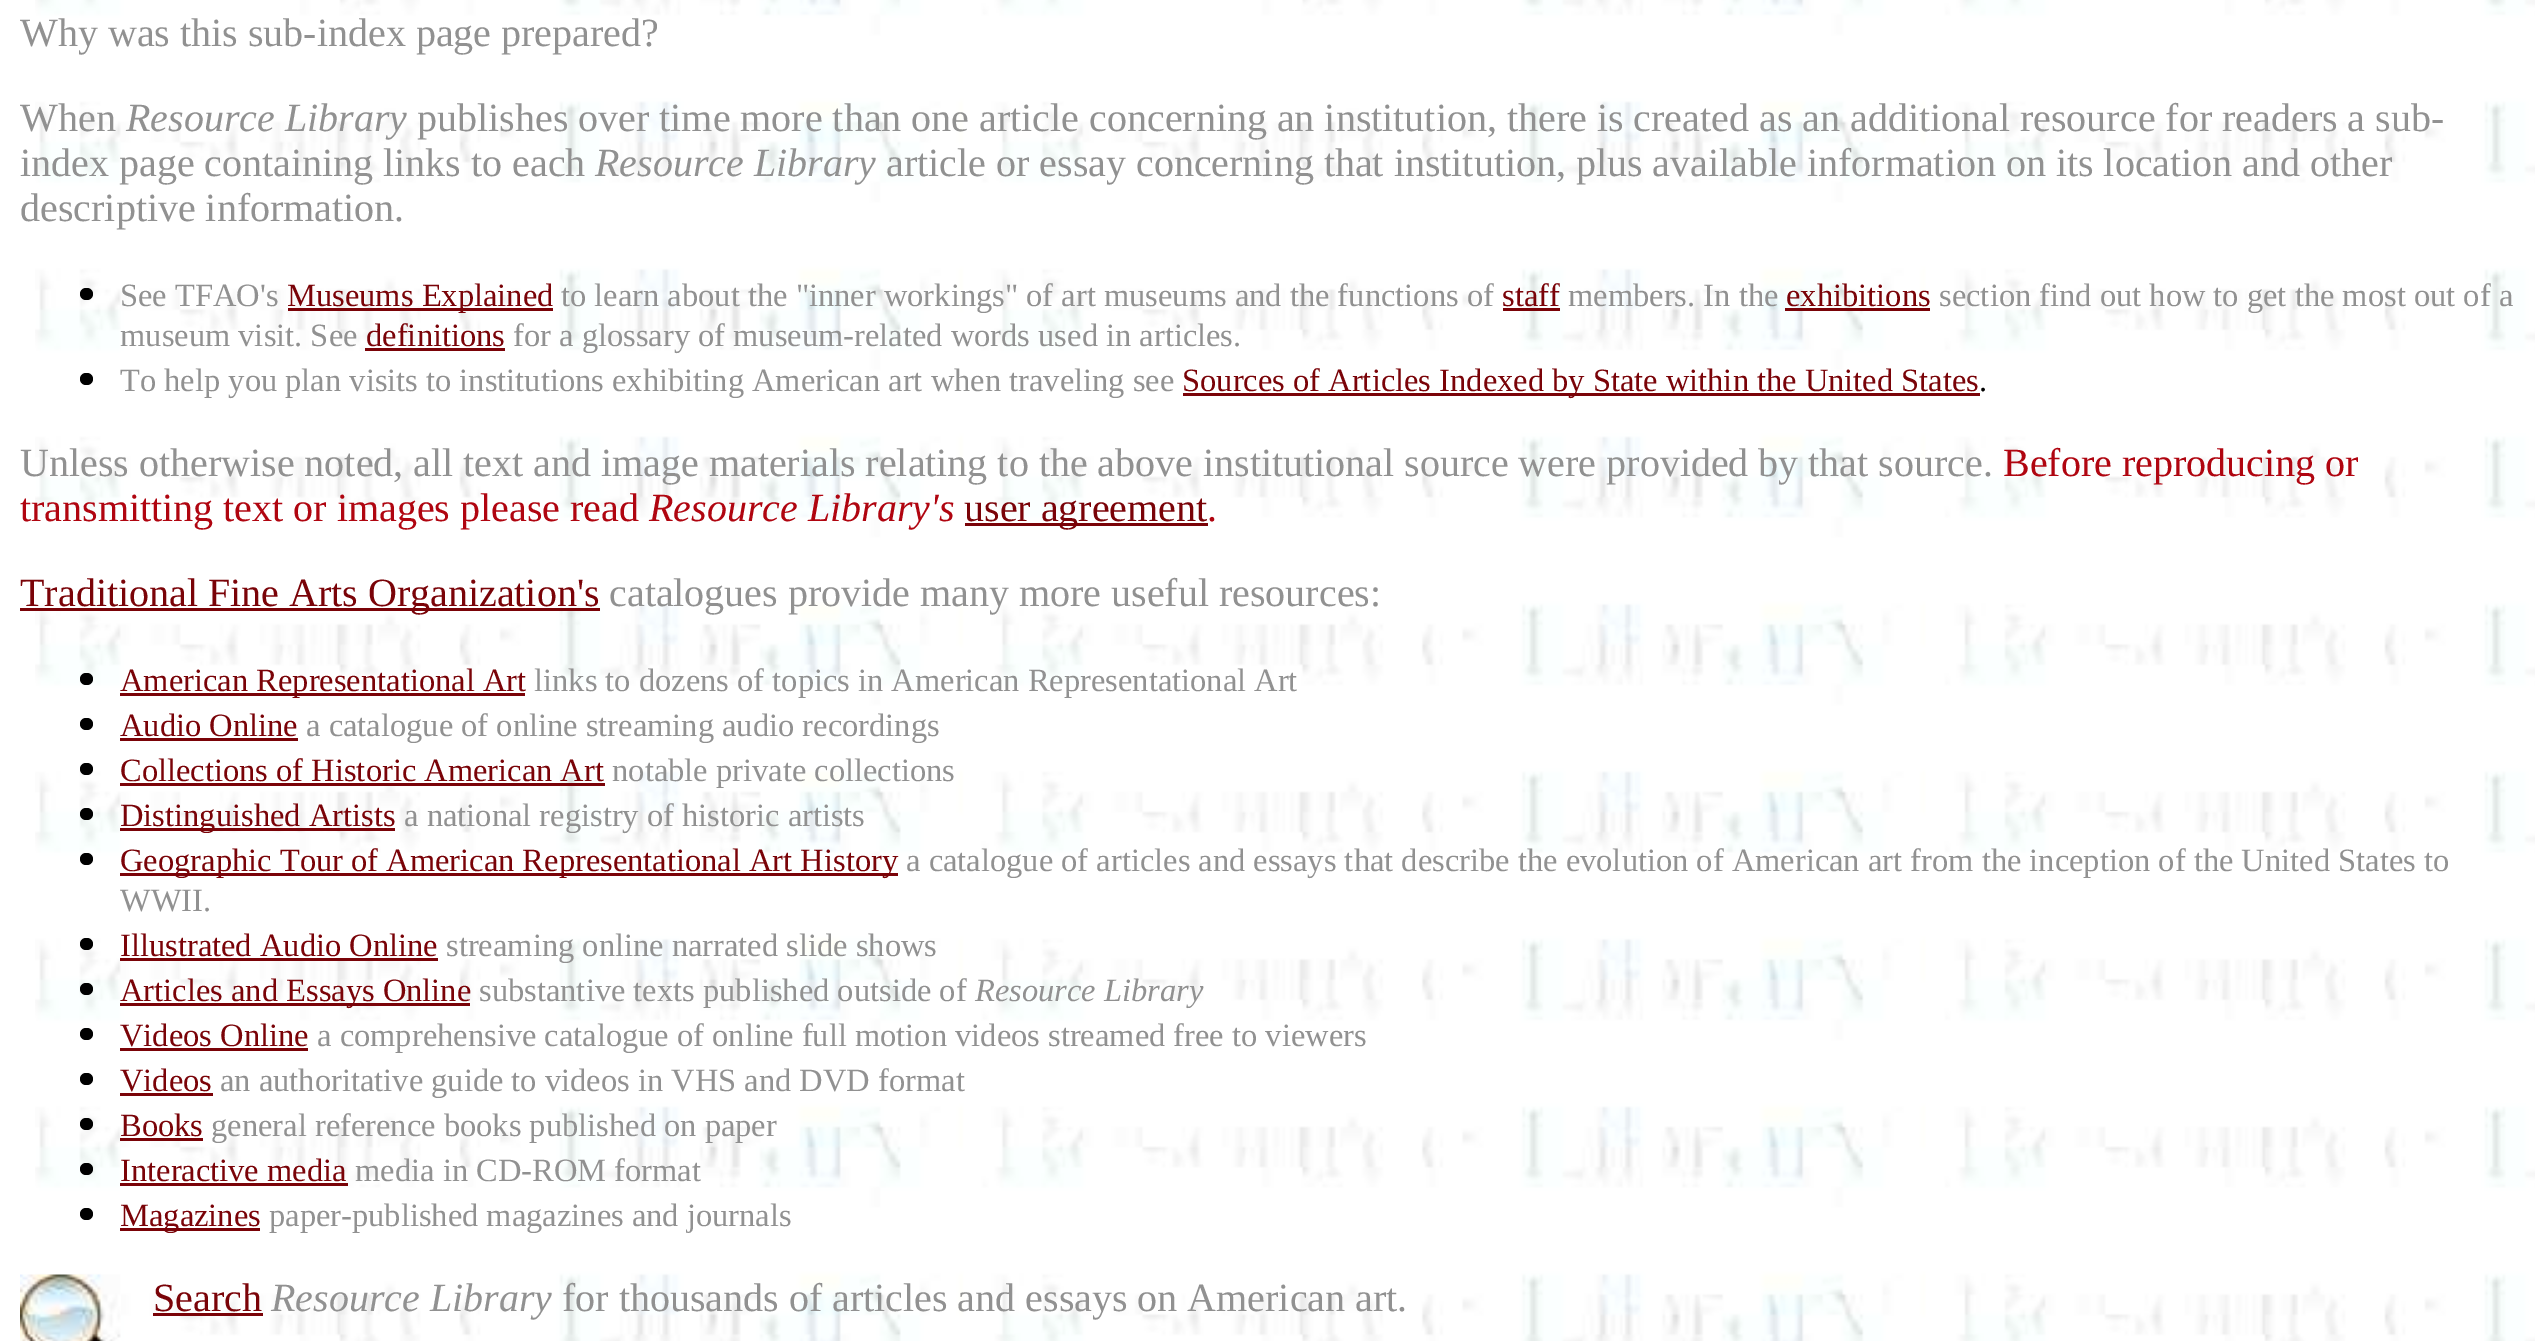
%!PS
<< /PageSize [2535 1341] >> setpagedevice
/f/fill load def
/C { dup -16 bitshift 255 div exch dup -8 bitshift 255 and 255 div exch 255 and 255 div setrgbcolor } def
/F { [ exch dup neg 0 0 3 -1 roll 0 0 ] selectfont } def
/T { moveto show } def
/R { rectfill } def
/Q { 5 dict begin { /r /h /w /y /x } { exch def } forall
  x r add y moveto x w add y 2 copy h add r arct x w add y h add x 1 index r arct
  x y h add x y r arct x y 2 copy exch w add exch r arct closepath end } def
/I { 5 dict begin { /h /w /y /x /name } { exch def } forall
  gsave x y translate w h scale
  w h 8 [w 0 0 h 0 0] name (r) file false 3 colorimage grestore end } def
0 1341 translate 1 -1 scale
4 setmiterlimit
16#FFFFFF C
0 0 2535 1341 R
(1.rgb) 35 0 2500 1341 I
/LiberationSerif-Regular 40 F
16#919191 C
(Why was this sub-index page prepared?) 20 46 T
(When) 20 131 T
/LiberationSerif-Italic 40 F
(Resource Library) 126 131 T
/LiberationSerif-Regular 40 F
(publishes over time more than one article concerning an institution, there is created as an additional resource for readers a sub-) 417 131 T
(index page containing links to each) 20 176 T
/LiberationSerif-Italic 40 F
(Resource Library) 595 176 T
/LiberationSerif-Regular 40 F
(article or essay concerning that institution, plus available information on its location and other) 886 176 T
(descriptive information.) 20 221 T
16#000000 C
80 288 13 12 6 Q f
/LiberationSerif-Regular 32.5 F
16#919191 C
(See TFAO's) 120 306 T
16#7A0308 C
288 308 265 3 R
(Museums Explained) 287 306 T
16#919191 C
(to learn about the "inner workings" of art museums and the functions of) 561 306 T
16#7A0308 C
(staff) 1502 306 T
1503 308 57 3 R
16#919191 C
(members. In the) 1568 306 T
16#7A0308 C
(exhibitions) 1786 306 T
1785 308 145 3 R
16#919191 C
(section find out how to get the most out of a) 1939 306 T
(museum visit. See) 120 346 T
16#7A0308 C
(definitions) 366 346 T
365 348 140 3 R
16#919191 C
(for a glossary of museum-related words used in articles.) 513 346 T
16#000000 C
80 373 13 12 6 Q f
16#919191 C
(To help you plan visits to institutions exhibiting American art when traveling see) 120 391 T
16#7A0308 C
1183 393 797 3 R
(Sources of Articles Indexed by State within the United States) 1182 391 T
16#000000 C
(.) 1979 391 T
/LiberationSerif-Regular 40 F
16#919191 C
(Unless otherwise noted, all text and image materials relating to the above institutional source were provided by that source.) 20 476 T
16#B00510 C
(Before reproducing or) 2003 476 T
(transmitting text or images please read) 20 521 T
/LiberationSerif-Italic 40 F
(Resource Library's) 649 521 T
16#7A0308 C
965 523 243 3 R
/LiberationSerif-Regular 40 F
(user agreement) 964 521 T
16#B00510 C
(.) 1207 521 T
16#7A0308 C
20 608 580 3 R
(Traditional Fine Arts Organization's) 20 606 T
16#919191 C
(catalogues provide many more useful resources:) 609 606 T
16#000000 C
80 673 13 12 6 Q f
16#7A0308 C
120 693 405 3 R
/LiberationSerif-Regular 32.5 F
(American Representational Art) 120 691 T
16#919191 C
(links to dozens of topics in American Representational Art) 534 691 T
16#000000 C
80 718 13 12 6 Q f
16#7A0308 C
(Audio Online) 120 736 T
120 738 178 3 R
16#919191 C
(a catalogue of online streaming audio recordings) 306 736 T
16#000000 C
80 763 13 12 6 Q f
16#7A0308 C
(Collections of Historic American Art) 120 781 T
120 783 485 3 R
16#919191 C
(notable private collections) 612 781 T
16#000000 C
80 808 13 12 6 Q f
16#7A0308 C
120 828 275 3 R
(Distinguished Artists) 120 826 T
16#919191 C
(a national registry of historic artists) 404 826 T
16#000000 C
80 853 13 12 6 Q f
16#7A0308 C
120 873 778 3 R
(Geographic Tour of American Representational Art History) 120 871 T
16#919191 C
(a catalogue of articles and essays that describe the evolution of American art from the inception of the United States to) 906 871 T
(WWII.) 120 911 T
16#000000 C
80 938 13 12 6 Q f
16#7A0308 C
(Illustrated Audio Online) 120 956 T
120 958 318 3 R
16#919191 C
(streaming online narrated slide shows) 446 956 T
16#000000 C
80 983 13 12 6 Q f
16#7A0308 C
120 1003 350 3 R
(Articles and Essays Online) 120 1001 T
16#919191 C
(substantive texts published outside of) 479 1001 T
/LiberationSerif-Italic 32.5 F
(Resource Library) 975 1001 T
16#000000 C
80 1028 13 12 6 Q f
/LiberationSerif-Regular 32.5 F
16#7A0308 C
(Videos Online) 120 1046 T
120 1048 188 3 R
16#919191 C
(a comprehensive catalogue of online full motion videos streamed free to viewers) 317 1046 T
16#000000 C
80 1073 13 12 6 Q f
16#7A0308 C
(Videos) 120 1091 T
120 1093 93 3 R
16#919191 C
(an authoritative guide to videos in VHS and DVD format) 220 1091 T
16#000000 C
80 1118 13 12 6 Q f
16#7A0308 C
(Books) 120 1136 T
120 1138 83 3 R
16#919191 C
(general reference books published on paper) 211 1136 T
16#000000 C
80 1163 13 12 6 Q f
16#7A0308 C
(Interactive media) 120 1181 T
120 1183 228 3 R
16#919191 C
(media in CD-ROM format) 355 1181 T
16#000000 C
80 1208 13 12 6 Q f
16#7A0308 C
120 1228 140 3 R
(Magazines) 120 1226 T
16#919191 C
(paper-published magazines and journals) 269 1226 T
(2.rgb) 20 1274 101 67 I
/LiberationSerif-Regular 40 F
16#7A0308 C
(Search) 153 1311 T
153 1313 110 3 R
/LiberationSerif-Italic 40 F
16#919191 C
(Resource Library) 271 1311 T
/LiberationSerif-Regular 40 F
(for thousands of articles and essays on American art.) 562 1311 T
showpage
